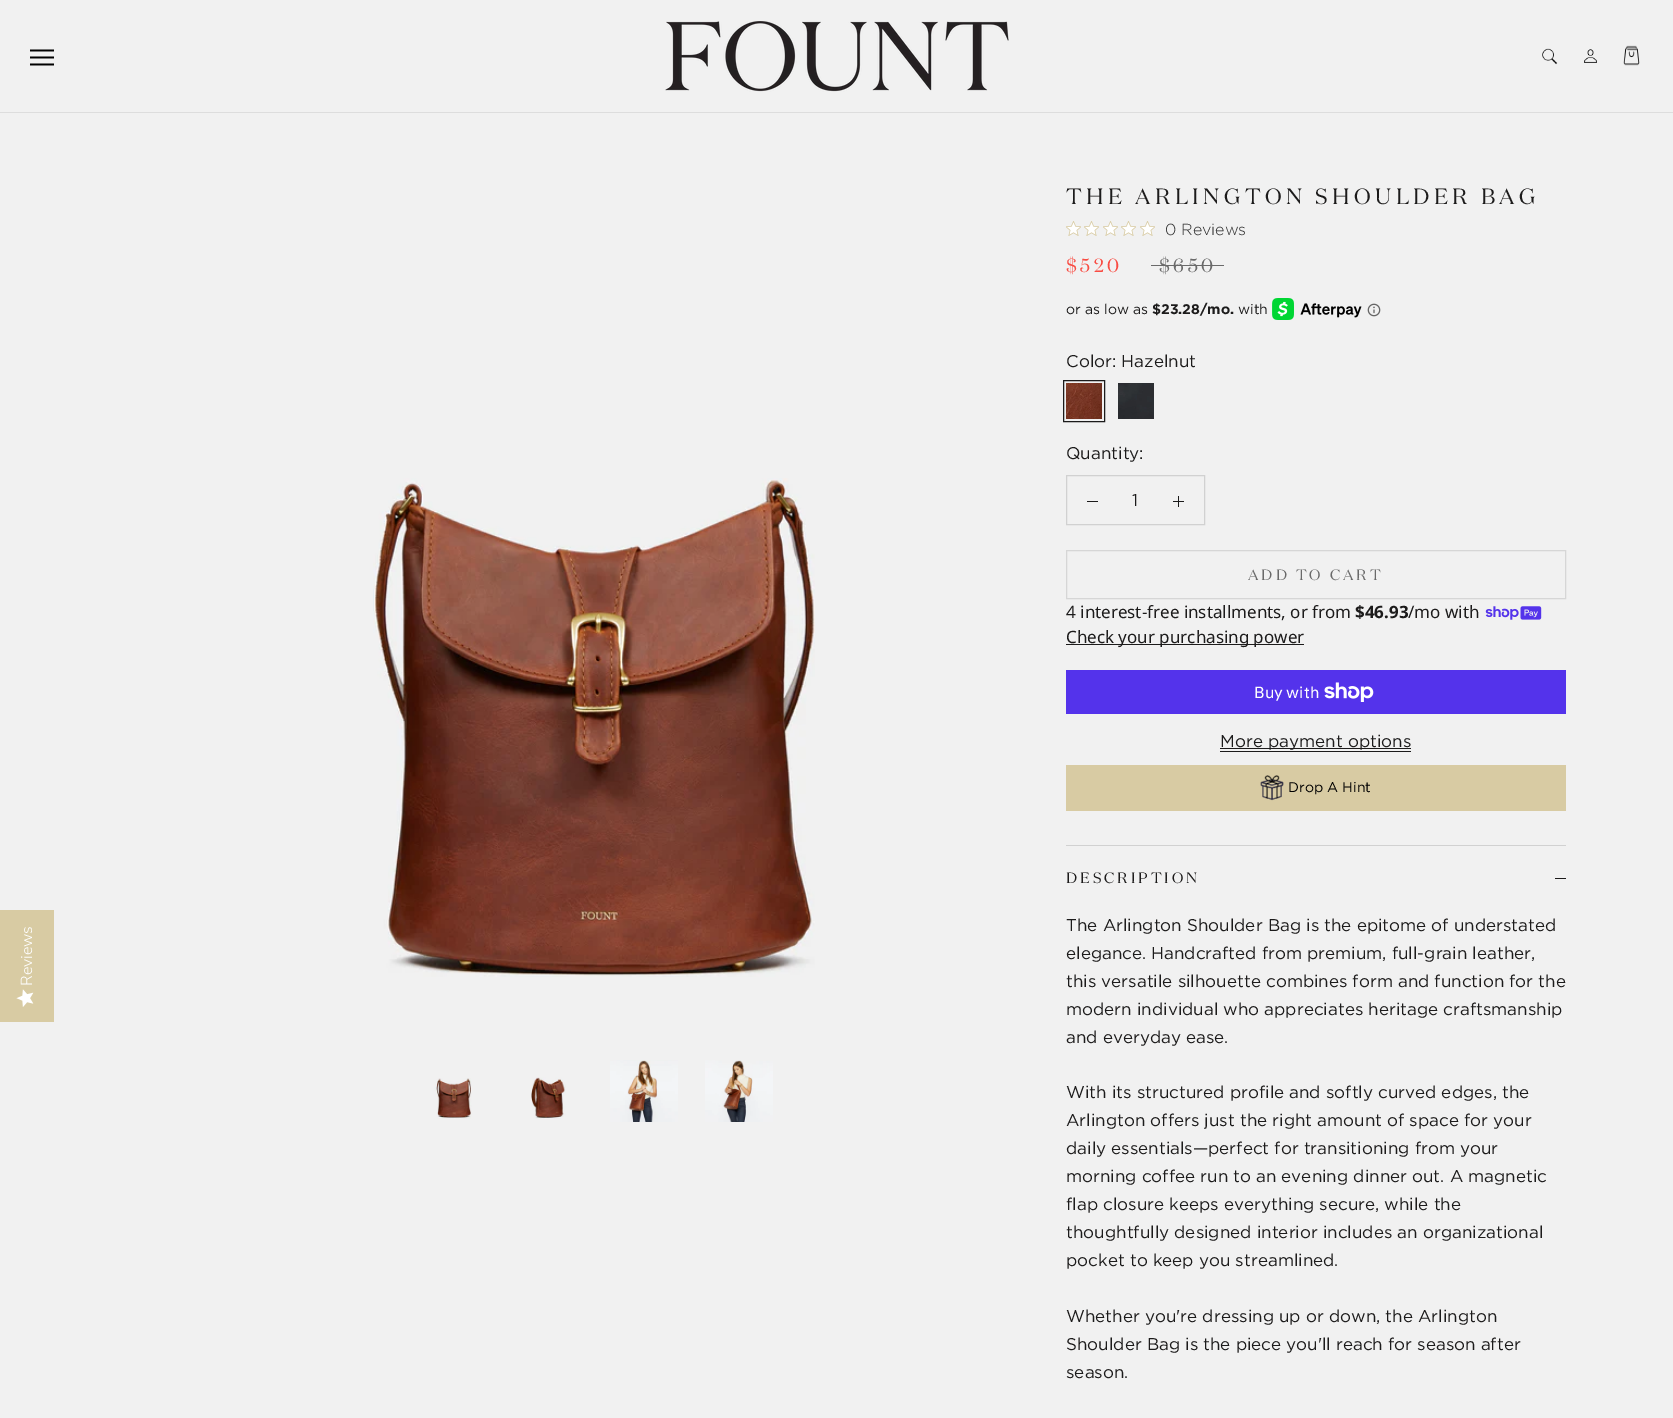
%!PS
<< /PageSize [1673 1418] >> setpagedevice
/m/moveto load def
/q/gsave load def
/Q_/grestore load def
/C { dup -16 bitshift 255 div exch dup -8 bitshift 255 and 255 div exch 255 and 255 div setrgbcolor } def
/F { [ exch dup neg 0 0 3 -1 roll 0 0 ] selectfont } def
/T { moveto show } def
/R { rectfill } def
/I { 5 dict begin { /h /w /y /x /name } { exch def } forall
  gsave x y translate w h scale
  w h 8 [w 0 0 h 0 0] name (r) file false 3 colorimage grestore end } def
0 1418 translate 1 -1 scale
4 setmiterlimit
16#F1F1F1 C
0 0 1673 1418 R
16#D8CBA3 C
0 910 54 112 R
/NunitoSans-Light 16 F
16#FFFFFF C
q 32 986 translate -90 rotate 0 0 m (Reviews) show Q_
(1.rgb) 16 989 18 18 I
16#DDDDDD C
0 112 1673 1 R
(2.rgb) 30 49 24 17 I
(3.rgb) 665 21 344 71 I
(4.rgb) 1542 48 16 17 I
(5.rgb) 1584 49 13 14 I
(6.rgb) 1623 45 17 21 I
(7.rgb) 373 478 442 499 I
(8.rgb) 434 1078 38 41 I
(9.rgb) 531 1077 35 42 I
(10.rgb) 610 1060 68 62 I
(11.rgb) 705 1060 68 62 I
/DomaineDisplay-Regular 22 F
16#1C1B1B C
1066 204 m 4.4 0 (THE ARLINGTON SHOULDER BAG) ashow
(12.rgb) 1066 221 15 15 I
(12.rgb) 1084 221 15 15 I
(12.rgb) 1103 221 15 15 I
(12.rgb) 1121 221 15 15 I
(12.rgb) 1140 221 15 15 I
/Gotham-Light 16 F
16#2C2C2C C
(0 Reviews) 1165 235 T
/DomaineDisplay-Regular 19 F
16#F94C43 C
1066 272 m 3.5 0 ($520) ashow
16#6A6A6A C
1159 272 m 3.5 0 ($650) ashow
1151 265 73 1 R
/Gotham-Regular 14 F
16#1C1B1B C
(or as low as) 1066 314 T
/Gotham-Bold 14 F
($23.28/mo.) 1152 314 T
/Gotham-Regular 14 F
(with) 1238 314 T
(13.rgb) 1272 298 90 22 I
(14.rgb) 1367 303 14 14 I
/Gotham-Regular 17 F
(Color: Hazelnut) 1066 367 T
(15.rgb) 1066 383 36 36 I
1063.5 380.5 41 41 rectstroke
(16.rgb) 1118 383 36 36 I
(Quantity:) 1066 459 T
16#D1D1D1 C
1066.5 475.5 138 49 rectstroke
16#1C1B1B C
1087 501 11 1 R
(1) 1132 506 T
1178 496 1 11 R
1173 501 11 1 R
16#D6D6D6 C
1066.5 550.5 499 48 rectstroke
/DomaineDisplay-Regular 15 F
16#6A6A6A C
1248 580 m 3 0 (ADD TO CART) ashow
/NotoSans-Regular 17 F
16#1C1B1B C
(4 interest-free installments, or from) 1066 618 T
/NotoSans-Bold 17 F
($46.93) 1355 618 T
/NotoSans-Regular 17 F
(/mo with) 1408 618 T
(17.rgb) 1485 606 57 14 I
1066 644 238 1 R
(Check your purchasing power) 1066 643 T
16#5433EB C
1066 670 500 44 R
/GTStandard-Regular 16 F
16#FFFFFF C
(Buy with) 1254 698 T
(18.rgb) 1324 682 50 20 I
16#1C1B1B C
1220 748 191 1 R
/Gotham-Regular 17 F
(More payment options) 1220 747 T
1220 751 191 1 R
16#D8CBA3 C
1066 765 500 46 R
(19.rgb) 1260 775 24 26 I
/Gotham-Regular 14 F
16#000000 C
(Drop A Hint) 1288 792 T
16#D1D1D1 C
1066 845 500 1 R
/DomaineDisplay-Regular 15 F
16#1C1B1B C
1066 883 m 3 0 (DESCRIPTION) ashow
1555 878 11 1 R
/Gotham-Regular 17 F
(The Arlington Shoulder Bag is the epitome of understated) 1066 931 T
(elegance. Handcrafted from premium, full-grain leather,) 1066 959 T
(this versatile silhouette combines form and function for the) 1066 987 T
(modern individual who appreciates heritage craftsmanship) 1066 1015 T
(and everyday ease.) 1066 1043 T
(With its structured profile and softly curved edges, the) 1066 1098 T
(Arlington offers just the right amount of space for your) 1066 1126 T
(daily essentials—perfect for transitioning from your) 1066 1154 T
(morning coffee run to an evening dinner out. A magnetic) 1066 1182 T
(flap closure keeps everything secure, while the) 1066 1210 T
(thoughtfully designed interior includes an organizational) 1066 1238 T
(pocket to keep you streamlined.) 1066 1266 T
(Whether you're dressing up or down, the Arlington) 1066 1322 T
(Shoulder Bag is the piece you'll reach for season after) 1066 1350 T
(season.) 1066 1378 T
showpage
